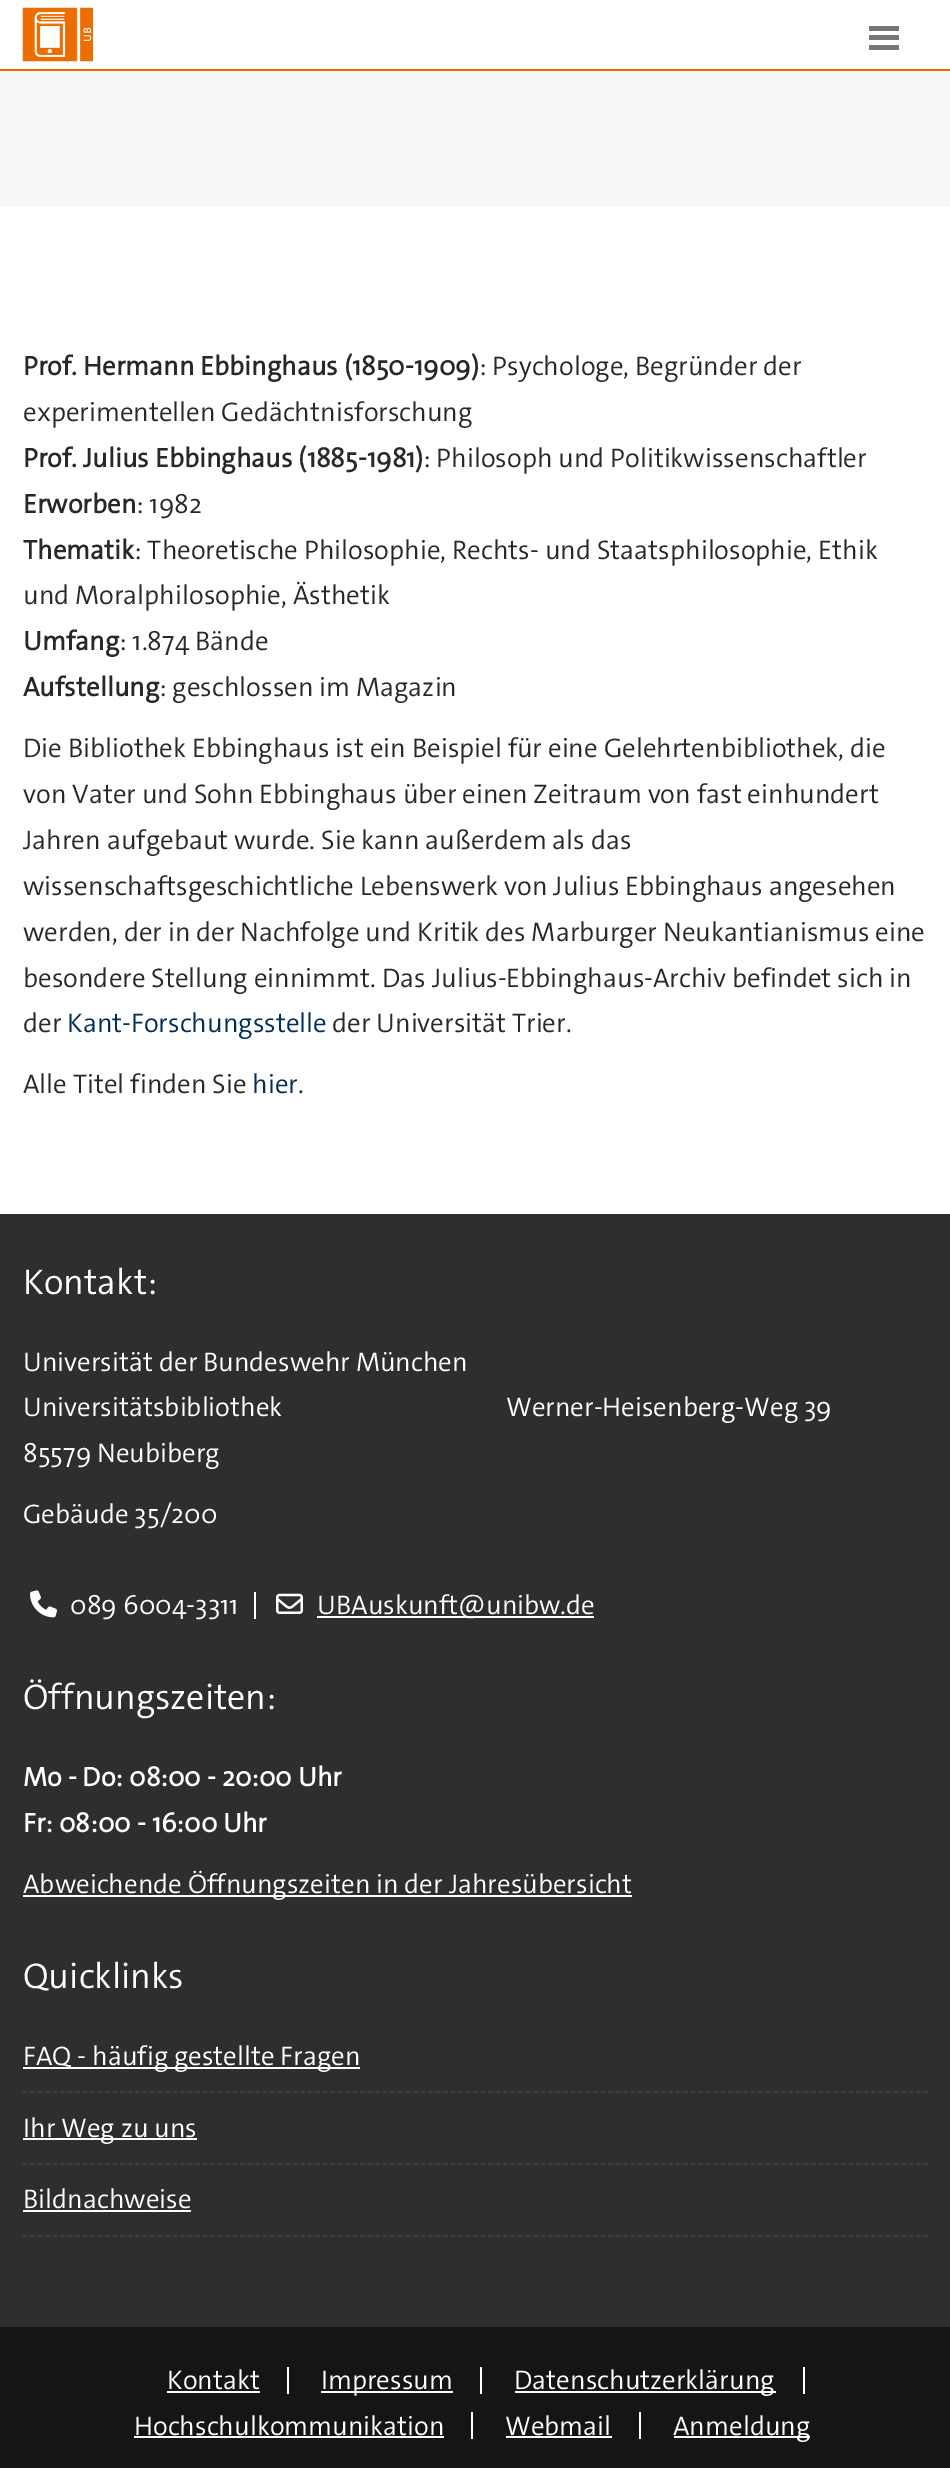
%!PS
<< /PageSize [950 2468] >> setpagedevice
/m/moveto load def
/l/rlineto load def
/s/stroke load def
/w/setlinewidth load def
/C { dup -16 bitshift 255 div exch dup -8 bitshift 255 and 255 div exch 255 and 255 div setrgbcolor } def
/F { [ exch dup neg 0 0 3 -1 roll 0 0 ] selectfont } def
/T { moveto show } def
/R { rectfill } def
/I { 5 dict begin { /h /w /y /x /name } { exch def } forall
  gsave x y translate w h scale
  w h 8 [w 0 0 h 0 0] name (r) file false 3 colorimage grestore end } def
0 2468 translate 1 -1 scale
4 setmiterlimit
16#FFFFFF C
0 0 950 2468 R
16#ED6600 C
0 69 950 2 R
(1.rgb) 22 7 71 55 I
16#777777 C
869 26 30 5 R
869 35 30 5 R
869 45 30 5 R
16#F8F8F8 C
0 71 950 136 R
/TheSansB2-Bold 27 F
16#282828 C
(Prof. Hermann Ebbinghaus \(1850-1909\)) 23 375 T
/TheSansB2-Light 27 F
(: Psychologe, Begründer der) 479 375 T
(experimentellen Gedächtnisforschung) 23 421 T
/TheSansB2-Bold 27 F
(Prof. Julius Ebbinghaus \(1885-1981\)) 23 467 T
/TheSansB2-Light 27 F
(: Philosoph und Politikwissenschaftler) 423 467 T
/TheSansB2-Bold 27 F
(Erworben) 23 513 T
/TheSansB2-Light 27 F
(: 1982) 136 513 T
/TheSansB2-Bold 27 F
(Thematik) 23 559 T
/TheSansB2-Light 27 F
(: Theoretische Philosophie, Rechts- und Staatsphilosophie, Ethik) 134 559 T
(und Moralphilosophie, Ästhetik) 23 604 T
/TheSansB2-Bold 27 F
(Umfang) 23 650 T
/TheSansB2-Light 27 F
(: 1.874 Bände) 119 650 T
/TheSansB2-Bold 27 F
(Aufstellung) 23 696 T
/TheSansB2-Light 27 F
(: geschlossen im Magazin) 159 696 T
(Die Bibliothek Ebbinghaus ist ein Beispiel für eine Gelehrtenbibliothek, die) 23 757 T
(von Vater und Sohn Ebbinghaus über einen Zeitraum von fast einhundert) 23 803 T
(Jahren aufgebaut wurde. Sie kann außerdem als das) 23 849 T
(wissenschaftsgeschichtliche Lebenswerk von Julius Ebbinghaus angesehen) 23 895 T
(werden, der in der Nachfolge und Kritik des Marburger Neukantianismus eine) 23 941 T
(besondere Stellung einnimmt. Das Julius-Ebbinghaus-Archiv befindet sich in) 23 987 T
(der) 23 1032 T
16#002E5B C
(Kant-Forschungsstelle) 67 1032 T
16#282828 C
(der Universität Trier.) 332 1032 T
(Alle Titel finden Sie) 23 1093 T
16#002E5B C
(hier) 252 1093 T
16#282828 C
(.) 298 1093 T
16#2E2E2E C
0 1214 950 1113 R
/TheSansB2-Light 36 F
16#FFFFFF C
(Kontakt:) 23 1294 T
/TheSansB2-Light 27 F
(Universität der Bundeswehr München) 23 1371 T
(Universitätsbibliothek                                      Werner-Heisenberg-Weg 39) 23 1416 T
(85579 Neubiberg) 23 1462 T
(Gebäude 35/200) 23 1523 T
254 1592 2 27 R
(2.rgb) 30 1590 27 28 I
(089 6004-3311) 70 1614 T
(3.rgb) 276 1593 27 21 I
317 1616 277 2 R
(UBAuskunft@unibw.de) 317 1614 T
/TheSansB2-Light 36 F
(Öffnungszeiten:) 23 1709 T
/TheSansB2-Bold 27 F
(Mo - Do: 08:00 - 20:00 Uhr) 23 1786 T
(Fr: 08:00 - 16:00 Uhr) 23 1832 T
23 1895 609 2 R
/TheSansB2-Light 27 F
(Abweichende Öffnungszeiten in der Jahresübersicht) 23 1893 T
/TheSansB2-Light 36 F
(Quicklinks) 23 1988 T
16#404040 C
1.5 w
[4.5 3.01] 0 setdash
22.5 2092 m 906 0 l s
16#FFFFFF C
23 2067 337 2 R
/TheSansB2-Light 27 F
(FAQ - häufig gestellte Fragen) 23 2065 T
16#404040 C
22.5 2164 m 906 0 l s
16#FFFFFF C
23 2138 174 2 R
(Ihr Weg zu uns) 23 2137 T
16#404040 C
22.5 2236 m 906 0 l s
16#FFFFFF C
(Bildnachweise) 23 2208 T
23 2210 168 2 R
16#151515 C
0 2327 950 141 R
16#FFFFFF C
287 2367 2 27 R
(Kontakt) 167 2389 T
167 2391 93 2 R
480 2367 2 27 R
321 2391 132 2 R
(Impressum) 321 2389 T
803 2367 2 27 R
515 2391 261 2 R
(Datenschutzerklärung) 514 2389 T
471 2412 2 27 R
(Hochschulkommunikation) 134 2435 T
134 2436 310 2 R
639 2412 2 27 R
(Webmail) 505 2435 T
506 2436 106 2 R
674 2436 136 2 R
(Anmeldung) 673 2435 T
showpage
